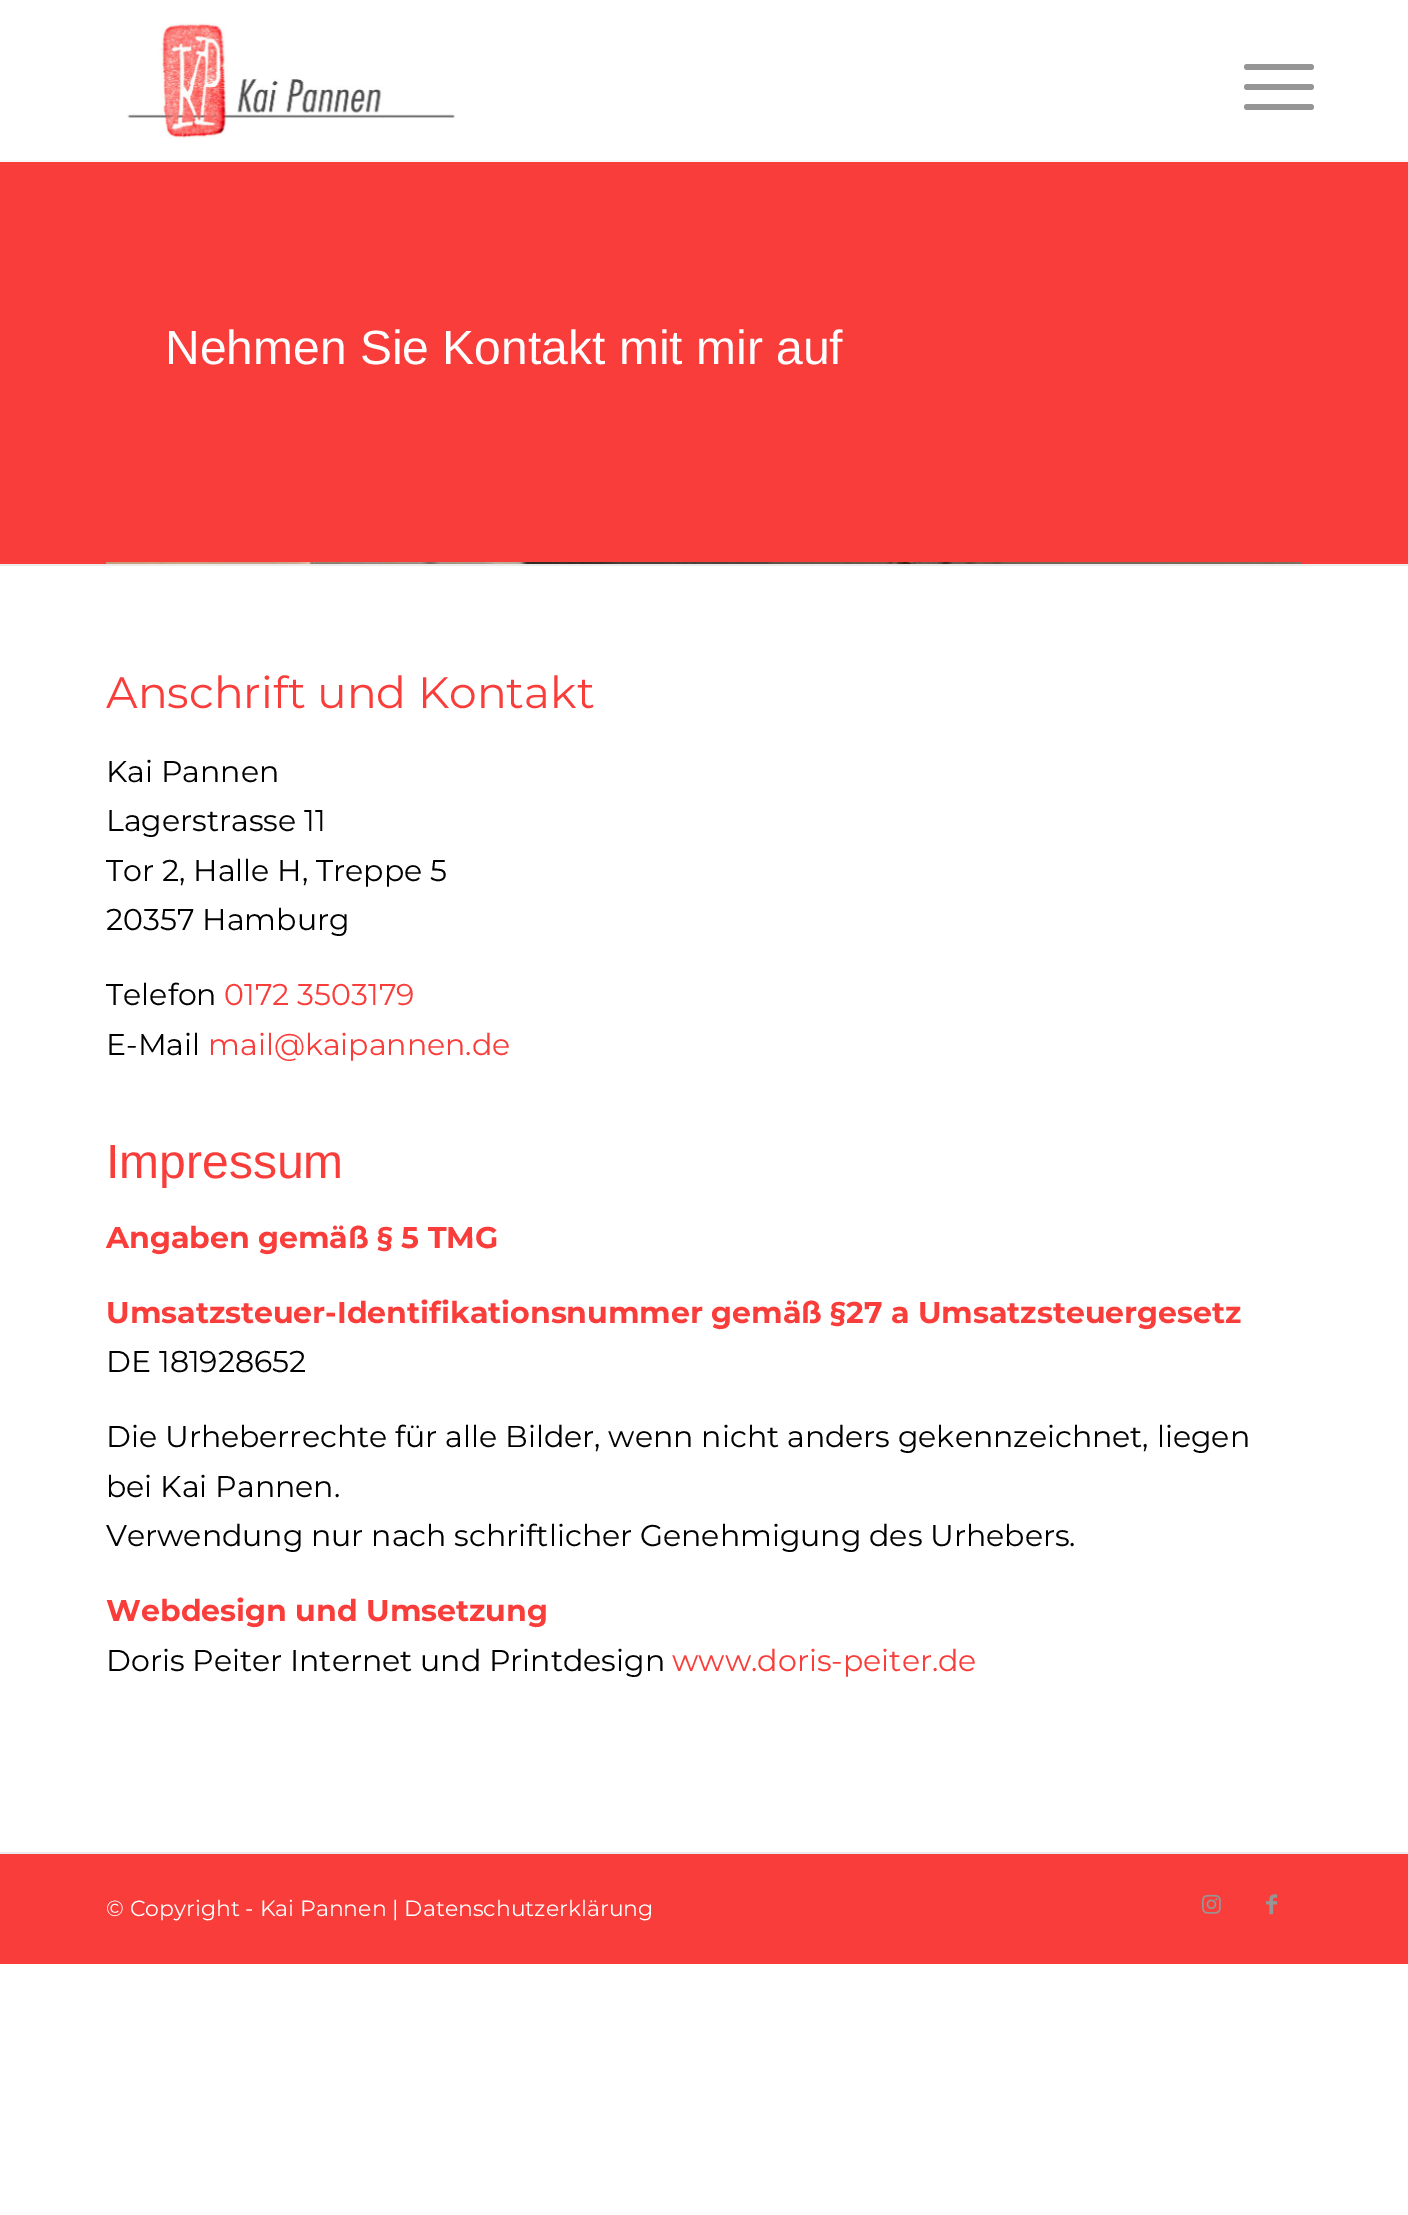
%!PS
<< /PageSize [1408 2215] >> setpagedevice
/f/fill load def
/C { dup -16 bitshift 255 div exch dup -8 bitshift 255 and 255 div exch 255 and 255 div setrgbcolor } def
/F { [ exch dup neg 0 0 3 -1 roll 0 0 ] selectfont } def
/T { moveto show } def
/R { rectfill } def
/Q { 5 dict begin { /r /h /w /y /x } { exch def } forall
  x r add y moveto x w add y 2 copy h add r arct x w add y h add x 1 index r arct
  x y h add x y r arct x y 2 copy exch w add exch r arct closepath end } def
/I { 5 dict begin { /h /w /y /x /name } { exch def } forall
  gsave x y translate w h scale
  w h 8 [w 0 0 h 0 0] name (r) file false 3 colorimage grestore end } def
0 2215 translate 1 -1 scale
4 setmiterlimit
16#FFFFFF C
0 0 1408 2215 R
16#F8F8F8 C
0 160 1408 2 R
(1.rgb) 127 23 328 116 I
16#969696 C
1244 84 70 6 3 Q f
1244 64 70 6 3 Q f
1244 104 70 6 3 Q f
16#F93D3A C
0 162 1408 402 R
/LiberationSans-Regular 48 F
16#FFFFFF C
(Nehmen Sie Kontakt mit mir auf) 165 364 T
(2.rgb) 106 562 1196 2 I
16#EBEBEB C
0 564 1408 2 R
/Montserrat-Regular 44 F
16#F93D3A C
(Anschrift und Kontakt) 106 708 T
/Montserrat-Regular 30 F
16#000000 C
(Kai Pannen) 106 782 T
(Lagerstrasse 11) 106 831 T
(Tor 2, Halle H, Treppe 5) 106 881 T
(20357 Hamburg) 106 930 T
(Telefon) 106 1005 T
16#F93D3A C
(0172 3503179) 224 1005 T
16#000000 C
(E-Mail) 106 1055 T
16#F93D3A C
(mail@kaipannen.de) 208 1055 T
/LiberationSans-Regular 48 F
(Impressum) 106 1178 T
/Montserrat-Bold 30 F
(Angaben gemäß § 5 TMG) 106 1248 T
(Umsatzsteuer-Identifikationsnummer gemäß §27 a Umsatzsteuergesetz) 106 1323 T
/Montserrat-Regular 30 F
16#000000 C
(DE 181928652) 106 1372 T
(Die Urheberrechte für alle Bilder, wenn nicht anders gekennzeichnet, liegen) 106 1447 T
(bei Kai Pannen.) 106 1497 T
(Verwendung nur nach schriftlicher Genehmigung des Urhebers.) 106 1546 T
/Montserrat-Bold 30 F
16#F93D3A C
(Webdesign und Umsetzung) 106 1621 T
/Montserrat-Regular 30 F
16#000000 C
(Doris Peiter Internet und Printdesign) 106 1671 T
16#F93D3A C
(www.doris-peiter.de) 672 1671 T
0 1854 1408 110 R
16#EBEBEB C
0 1852 1408 2 R
/Montserrat-Regular 22 F
16#FFFFFF C
(© Copyright - Kai Pannen | Datenschutzerklärung) 106 1916 T
(3.rgb) 1202 1894 19 20 I
(4.rgb) 1266 1894 11 21 I
showpage
